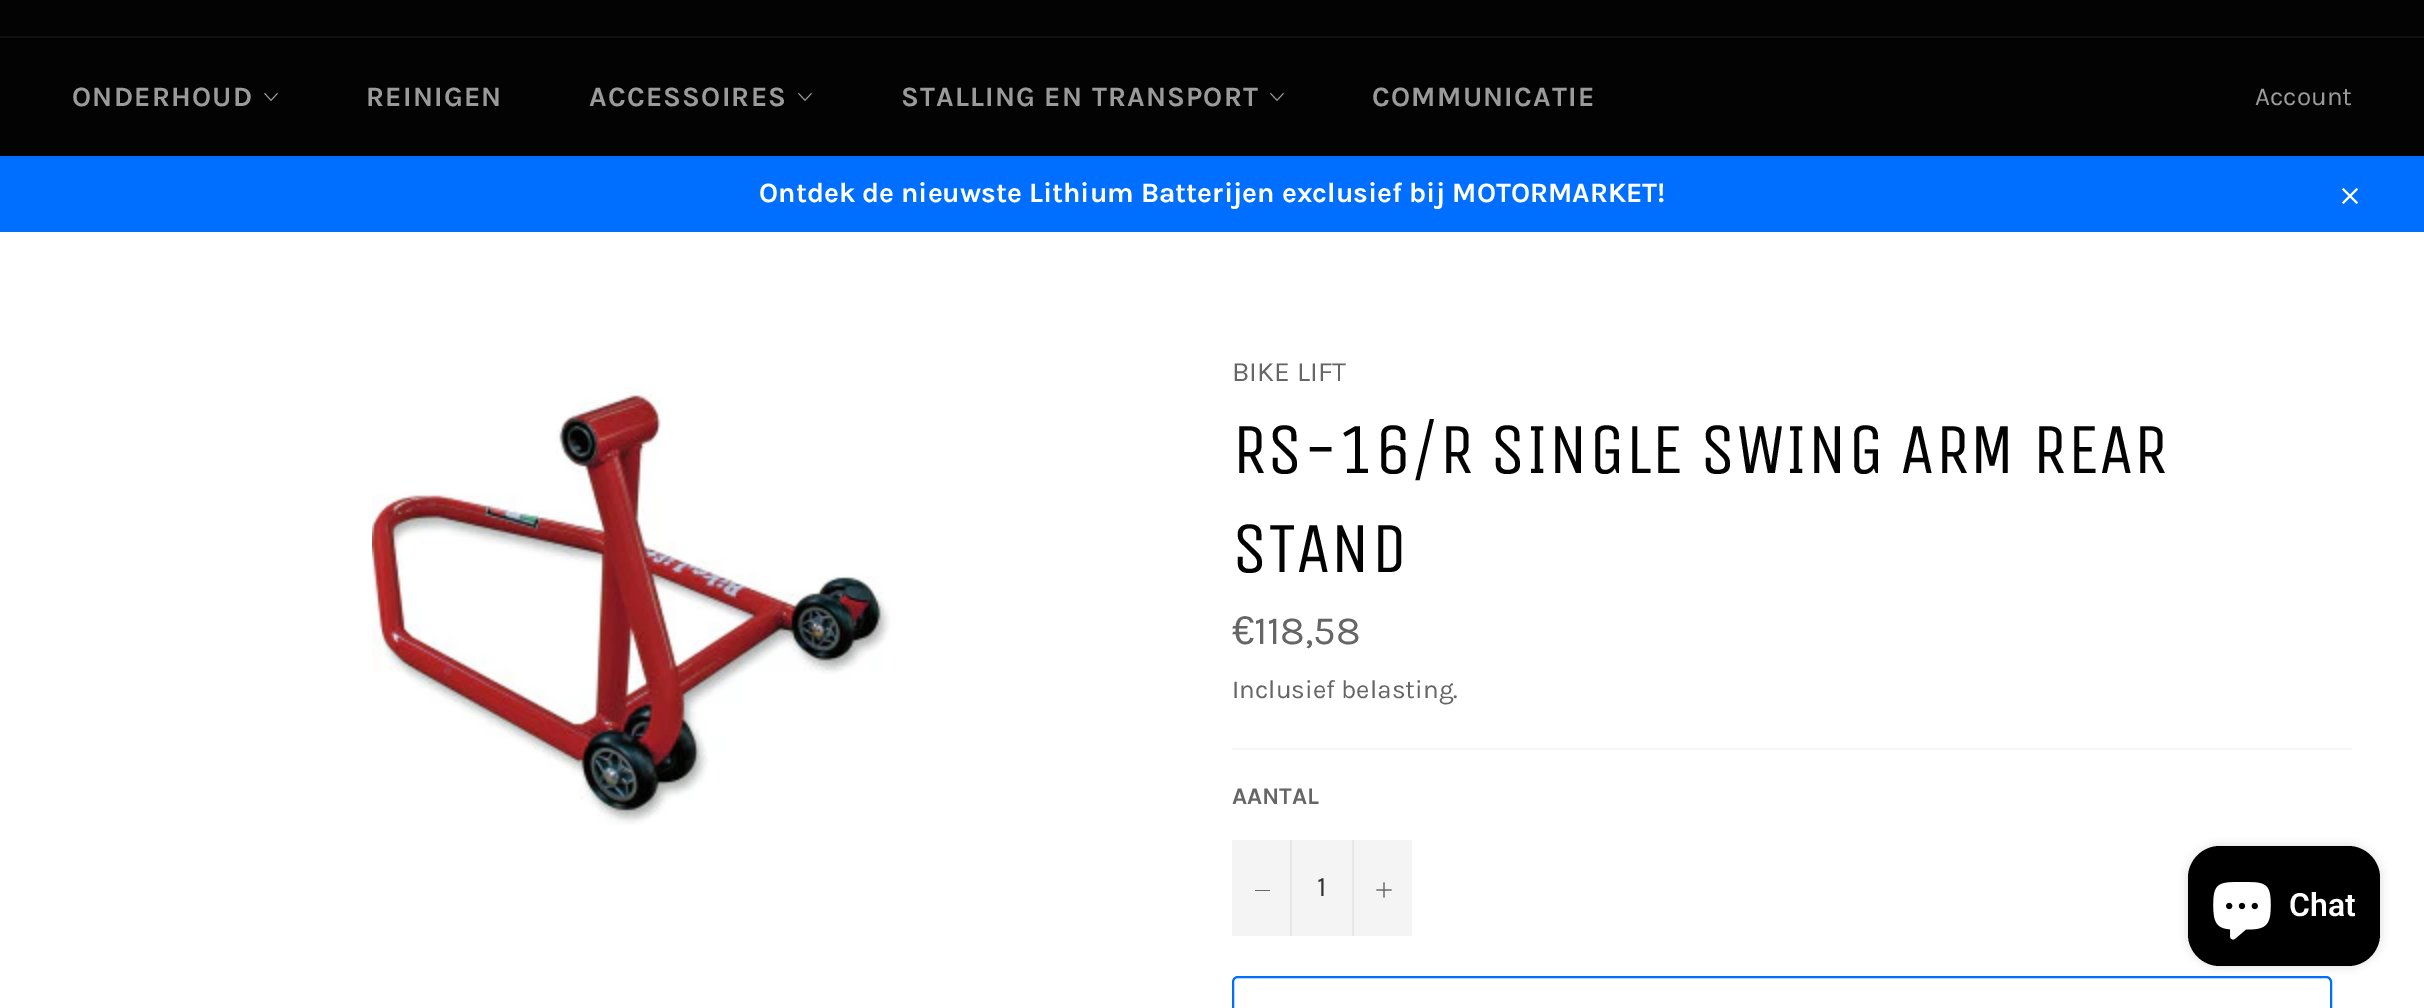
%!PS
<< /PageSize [2424 1008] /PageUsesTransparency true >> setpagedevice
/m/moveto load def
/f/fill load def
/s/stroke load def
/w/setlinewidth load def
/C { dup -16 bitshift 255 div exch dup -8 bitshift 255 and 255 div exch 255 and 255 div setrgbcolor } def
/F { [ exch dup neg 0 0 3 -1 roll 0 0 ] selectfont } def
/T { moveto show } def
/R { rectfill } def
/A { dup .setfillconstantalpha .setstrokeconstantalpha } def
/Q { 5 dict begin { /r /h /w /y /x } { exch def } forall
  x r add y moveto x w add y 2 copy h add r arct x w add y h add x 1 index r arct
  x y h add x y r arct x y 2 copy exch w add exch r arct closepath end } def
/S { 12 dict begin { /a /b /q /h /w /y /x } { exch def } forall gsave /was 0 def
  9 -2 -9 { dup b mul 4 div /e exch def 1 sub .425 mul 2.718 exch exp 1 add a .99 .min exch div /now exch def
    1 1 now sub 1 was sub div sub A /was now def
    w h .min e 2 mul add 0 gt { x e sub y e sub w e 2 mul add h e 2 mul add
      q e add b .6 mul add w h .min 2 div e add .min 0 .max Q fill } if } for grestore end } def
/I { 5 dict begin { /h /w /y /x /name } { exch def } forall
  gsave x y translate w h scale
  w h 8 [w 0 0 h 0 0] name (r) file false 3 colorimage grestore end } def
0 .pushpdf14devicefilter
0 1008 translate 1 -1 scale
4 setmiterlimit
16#030303 C
0 0 2424 1008 R
16#101010 C
0 36 2424 2 R
/Karla-Bold 28 F
16#9A9A9A C
72 106 m 1.2 0 (ONDERHOUD) ashow
(1.rgb) 264 92 14 9 I
366 106 m 1.2 0 (REINIGEN) ashow
589 106 m 1.2 0 (ACCESSOIRES) ashow
(1.rgb) 798 92 14 9 I
901 106 m 1.2 0 (STALLING EN TRANSPORT) ashow
(1.rgb) 1270 92 14 9 I
1372 106 m 1.2 0 (COMMUNICATIE) ashow
/Karla-Regular 26 F
(Account) 2255 105 T
16#006EFF C
0 156 2424 76 R
/Karla-Bold 28 F
16#FFFFFF C
(Ontdek de nieuwste Lithium Batterijen exclusief bij MOTORMARKET!) 759 202 T
(2.rgb) 2341 188 18 16 I
0 232 2424 776 R
(3.rgb) 372 387 519 438 I
/Karla-Regular 28 F
16#666666 C
(BIKE LIFT) 1232 381 T
/UnicaOne-Regular 72 F
16#030303 C
(RS-16/R SINGLE SWING ARM REAR) 1232 473 T
(STAND) 1232 572 T
/LiberationSans-Regular 40 F
16#666666 C
(€) 1232 644 T
/Karla-Regular 40 F
(118,58) 1254 644 T
/Karla-Regular 26 F
(Inclusief belasting.) 1232 698 T
16#F7F7F7 C
1232 748 1120 2 R
/Karla-Bold 24 F
16#666666 C
(AANTAL) 1232 804 T
16#F4F4F4 C
1232 840 180 96 R
16#E7E7E7 C
1290 840 2 96 R
16#666666 C
1255 890 15 1 R
/Karla-Regular 28 F
16#333333 C
(1) 1317 896 T
16#E7E7E7 C
1352 840 2 96 R
(4.rgb) 1376 882 16 16 I
16#006EFF C
2 w
1233 977 1098 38 5 Q s
16#000000 C
2188 846 192 120 32 5 .15 S
2188 846 192 120 32 Q f
(5.rgb) 2213 882 58 58 I
/Roboto-SemiBold 32 F
16#FFFFFF C
(Chat) 2289 916 T
.poppdf14devicefilter showpage
